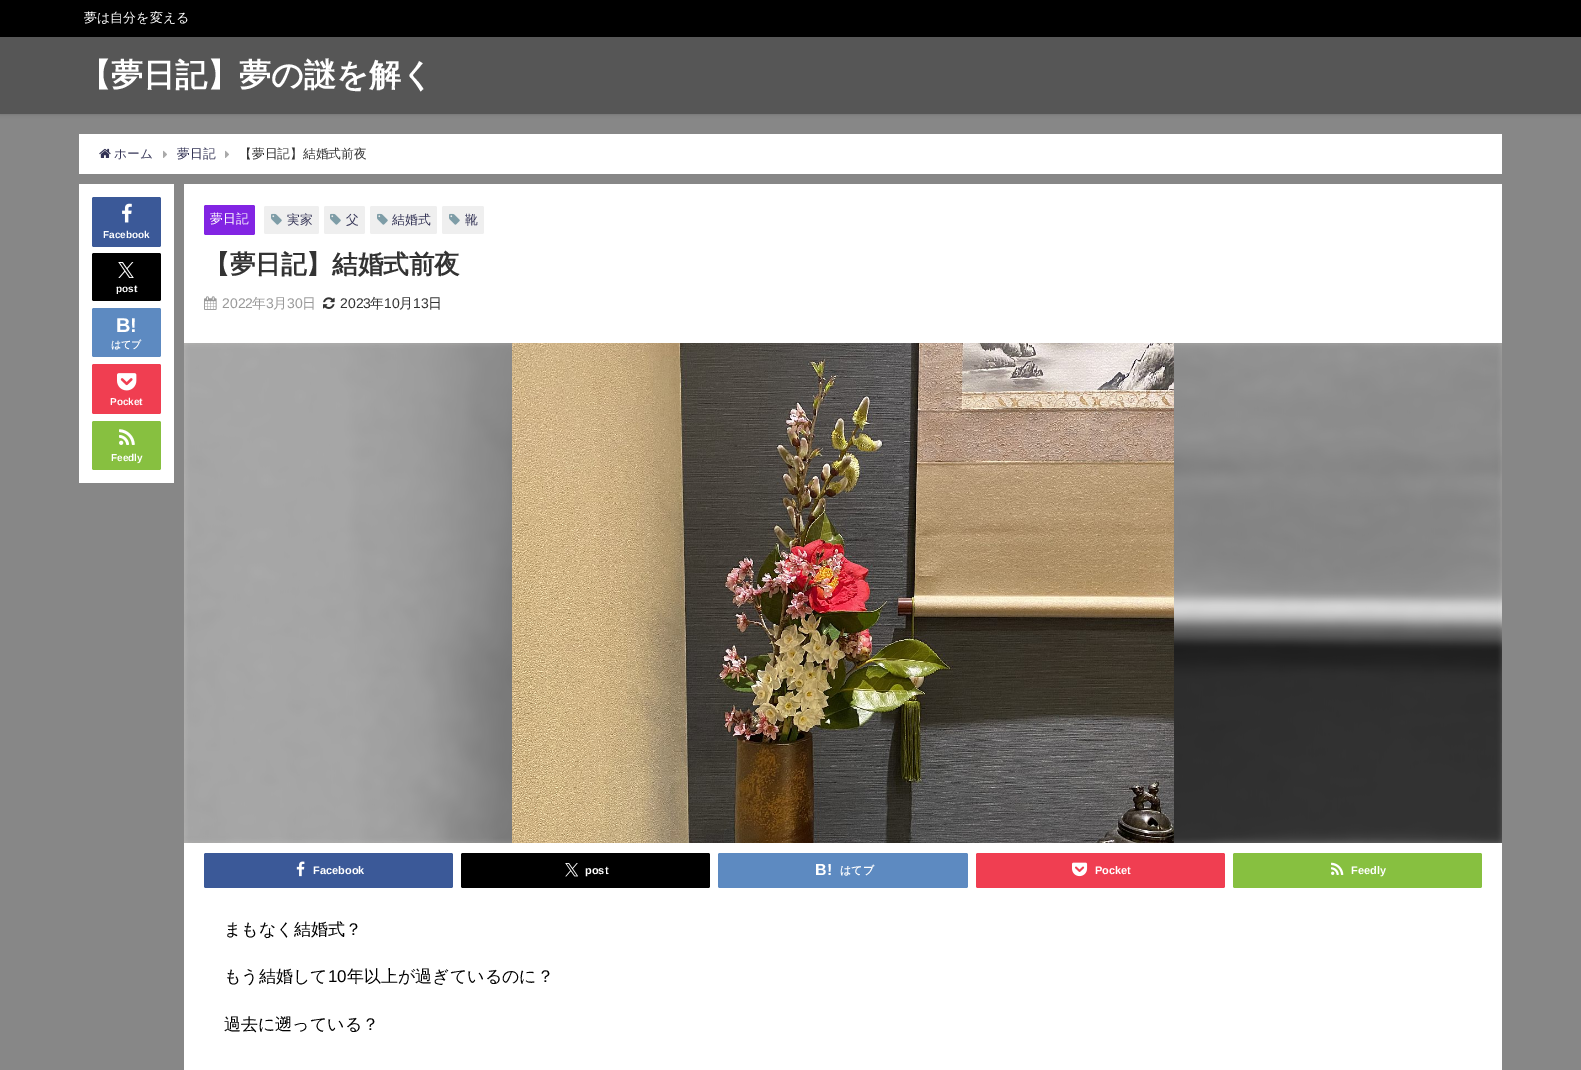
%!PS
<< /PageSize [1581 1070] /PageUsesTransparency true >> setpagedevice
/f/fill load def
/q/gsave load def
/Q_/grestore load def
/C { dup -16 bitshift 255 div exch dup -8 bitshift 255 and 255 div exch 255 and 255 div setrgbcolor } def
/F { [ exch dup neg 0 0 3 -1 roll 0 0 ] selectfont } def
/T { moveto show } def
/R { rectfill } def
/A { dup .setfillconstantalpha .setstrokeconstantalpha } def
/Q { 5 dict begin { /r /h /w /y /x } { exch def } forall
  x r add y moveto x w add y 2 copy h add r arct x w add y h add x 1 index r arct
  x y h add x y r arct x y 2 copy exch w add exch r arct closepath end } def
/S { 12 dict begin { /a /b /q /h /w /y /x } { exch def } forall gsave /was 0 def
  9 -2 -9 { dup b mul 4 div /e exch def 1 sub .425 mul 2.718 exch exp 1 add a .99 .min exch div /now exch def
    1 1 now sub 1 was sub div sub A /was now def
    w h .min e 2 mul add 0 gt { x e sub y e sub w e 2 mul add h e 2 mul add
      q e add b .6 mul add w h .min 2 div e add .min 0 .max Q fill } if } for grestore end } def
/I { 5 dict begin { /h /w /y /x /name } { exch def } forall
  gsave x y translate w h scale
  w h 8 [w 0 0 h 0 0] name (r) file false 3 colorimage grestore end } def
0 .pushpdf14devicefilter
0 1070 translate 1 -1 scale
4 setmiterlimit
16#878787 C
0 0 1581 1070 R
16#000000 C
0 0 1581 114 0 2 .2 S
16#565656 C
0 37 1581 77 R
16#000000 C
0 0 1581 37 R
/WenQuanYiZenHei-Medium 13 F
16#FFFFFF C
(夢は自分を変える) 84 22 T
/WenQuanYiZenHei-Bold 32 F
(【夢日記】夢の謎を解く) 79 86 T
79 134 1423 40 R
(1.rgb) 99 148 12 10 I
/WenQuanYiZenHei-Medium 12.75 F
16#333355 C
(ホーム) 114 158 T
(2.rgb) 163 150 4 8 I
(夢日記) 177 158 T
(2.rgb) 225 150 4 8 I
16#333333 C
(【夢日記】結婚式前夜) 239 158 T
16#FFFFFF C
184 184 1318 886 R
(10.rgb) 184 343 1318 500 I
q
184 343 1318 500 rectclip
16#E5E5E5 C
179 338 1328 510 0 5 1 S
Q_
79 184 95 299 R
16#3B5998 C
92 197 69 50 2 Q f
(3.rgb) 122 203 10 20 I
/LiberationSans-Bold 10 F
16#FFFFFF C
(Facebook) 103 238 T
16#000000 C
92 253 69 48 2 Q f
(4.rgb) 118 262 16 16 I
16#FFFFFF C
(post) 116 292 T
16#5D8AC1 C
92 308 69 49 2 Q f
/LiberationSans-Bold 20 F
16#FFFFFF C
(B!) 116 332 T
/WenQuanYiZenHei-Bold 10 F
(はてブ) 111 348 T
16#F03E51 C
92 364 69 50 2 Q f
(5.rgb) 117 373 20 18 I
/LiberationSans-Bold 10 F
16#FFFFFF C
(Pocket) 110 405 T
16#87C040 C
92 421 69 49 2 Q f
(6.rgb) 119 429 16 16 I
16#FFFFFF C
(Feedly) 111 461 T
16#8224E3 C
204 205 51 30 2 Q f
/WenQuanYiZenHei-Medium 12.75 F
16#FFFFFF C
(夢日記) 210 223 T
16#EFEFEF C
264 206 55 28 2 Q f
(7.rgb) 271 213 11 12 I
16#333355 C
(実家) 287 224 T
16#EFEFEF C
324 206 41 28 2 Q f
(7.rgb) 330 213 11 12 I
16#333355 C
(父) 346 224 T
16#EFEFEF C
370 206 67 28 2 Q f
(7.rgb) 377 213 11 12 I
16#333355 C
(結婚式) 392 224 T
16#EFEFEF C
442 206 42 28 2 Q f
(7.rgb) 449 213 11 12 I
16#333355 C
(靴) 465 224 T
/WenQuanYiZenHei-Bold 25.6 F
16#333333 C
(【夢日記】結婚式前夜) 204 273 T
(8.rgb) 204 296 13 14 I
/LiberationSans-Regular 14 F
16#999999 C
(2022) 222 308 T
/WenQuanYiZenHei-Medium 14 F
(年) 252 308 T
/LiberationSans-Regular 14 F
(3) 266 308 T
/WenQuanYiZenHei-Medium 14 F
(月) 273 308 T
/LiberationSans-Regular 14 F
(30) 287 308 T
/WenQuanYiZenHei-Medium 14 F
(日) 302 308 T
(9.rgb) 323 297 12 12 I
/LiberationSans-Regular 14 F
16#333333 C
(2023) 340 308 T
/WenQuanYiZenHei-Medium 14 F
(年) 370 308 T
/LiberationSans-Regular 14 F
(10) 384 308 T
/WenQuanYiZenHei-Medium 14 F
(月) 399 308 T
/LiberationSans-Regular 14 F
(13) 413 308 T
/WenQuanYiZenHei-Medium 14 F
(日) 428 308 T
(11.rgb) 184 343 1318 500 I
(12.rgb) 512 343 662 500 I
16#3B5998 C
204 853 249 35 2 Q f
(13.rgb) 296 861 9 16 I
/LiberationSans-Bold 11 F
16#FFFFFF C
(Facebook) 313 874 T
16#000000 C
461 853 249 35 2 Q f
(14.rgb) 565 863 13 14 I
16#FFFFFF C
(post) 585 874 T
16#5D8AC1 C
718 853 250 35 2 Q f
/LiberationSans-Bold 16 F
16#FFFFFF C
(B!) 815 875 T
/WenQuanYiZenHei-Bold 11 F
(はてブ) 840 874 T
16#F03E51 C
976 853 249 35 2 Q f
(15.rgb) 1072 862 16 15 I
/LiberationSans-Bold 11 F
16#FFFFFF C
(Pocket) 1095 874 T
16#87C040 C
1233 853 249 35 2 Q f
(16.rgb) 1331 862 13 13 I
16#FFFFFF C
(Feedly) 1351 874 T
/WenQuanYiZenHei-Medium 17 F
16#000000 C
(まもなく結婚式？) 224 935 T
(もう結婚して) 224 982 T
/LiberationSans-Regular 17 F
(10) 328 982 T
/WenQuanYiZenHei-Medium 17 F
(年以上が過ぎているのに？) 347 982 T
(過去に遡っている？) 224 1030 T
.poppdf14devicefilter showpage
